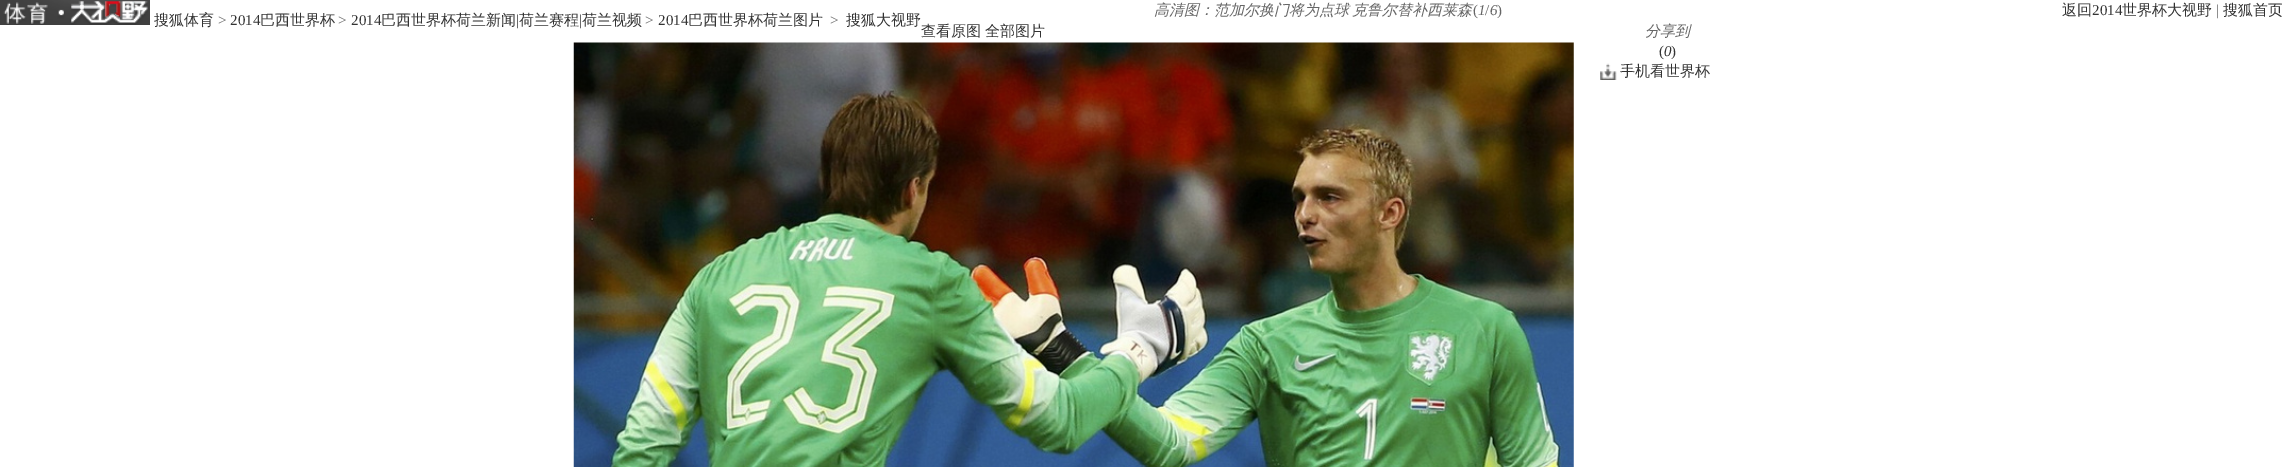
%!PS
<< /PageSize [2282 467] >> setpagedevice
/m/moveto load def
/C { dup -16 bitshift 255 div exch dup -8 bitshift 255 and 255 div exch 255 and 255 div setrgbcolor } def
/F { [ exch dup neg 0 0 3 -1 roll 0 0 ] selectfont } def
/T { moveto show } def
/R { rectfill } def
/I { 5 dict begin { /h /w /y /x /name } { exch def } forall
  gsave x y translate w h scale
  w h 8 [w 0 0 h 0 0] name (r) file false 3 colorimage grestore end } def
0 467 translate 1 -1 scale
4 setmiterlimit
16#FFFFFF C
0 0 2282 467 R
(1.rgb) 0 0 150 25 I
/WenQuanYiZenHei-Medium 15 F
16#333333 C
(搜狐体育) 154 25 T
/LiberationSerif-Regular 15 F
16#666666 C
(>) 218 25 T
16#333333 C
(2014) 230 25 T
/WenQuanYiZenHei-Medium 15 F
(巴西世界杯) 260 25 T
/LiberationSerif-Regular 15 F
16#666666 C
(>) 338 25 T
16#333333 C
(2014) 351 25 T
/WenQuanYiZenHei-Medium 15 F
(巴西世界杯荷兰新闻) 381 25 T
/LiberationSerif-Regular 15 F
(|) 516 25 T
/WenQuanYiZenHei-Medium 15 F
(荷兰赛程) 519 25 T
/LiberationSerif-Regular 15 F
(|) 579 25 T
/WenQuanYiZenHei-Medium 15 F
(荷兰视频) 582 25 T
/LiberationSerif-Regular 15 F
16#666666 C
(>) 645 25 T
16#333333 C
(2014) 658 25 T
/WenQuanYiZenHei-Medium 15 F
(巴西世界杯荷兰图片) 688 25 T
/LiberationSerif-Regular 15 F
16#666666 C
(>) 830 25 T
/WenQuanYiZenHei-Medium 15 F
16#333333 C
(搜狐大视野) 846 25 T
(返回) 2062 15 T
/LiberationSerif-Regular 15 F
(2014) 2092 15 T
/WenQuanYiZenHei-Medium 15 F
(世界杯大视野) 2122 15 T
/LiberationSerif-Regular 15 F
16#666666 C
(|) 2216 15 T
/WenQuanYiZenHei-Medium 15 F
16#333333 C
(搜狐首页) 2223 15 T
/WenQuanYiZenHei-MediumItalic 15 F
16#666666 C
1154 15 m -1 0 32 (高清图：范加尔换门将为点球 克鲁尔替补西莱森) widthshow
/LiberationSerif-Regular 15 F
(\() 1473 15 T
/LiberationSerif-Italic 15 F
(1) 1478 15 T
/LiberationSerif-Regular 15 F
(/) 1485 15 T
/LiberationSerif-Italic 15 F
(6) 1490 15 T
/LiberationSerif-Regular 15 F
(\)) 1497 15 T
/WenQuanYiZenHei-Medium 15 F
16#333333 C
(查看原图) 921 36 T
(全部图片) 985 36 T
/WenQuanYiZenHei-MediumItalic 15 F
16#666666 C
(分享到) 1645 36 T
/LiberationSerif-Regular 15 F
16#333333 C
(\() 1659 56 T
/LiberationSerif-Italic 15 F
(0) 1664 56 T
/LiberationSerif-Regular 15 F
(\)) 1671 56 T
(2.rgb) 1600 63 17 17 I
/WenQuanYiZenHei-Medium 15 F
(手机看世界杯) 1620 76 T
(3.rgb) 573 42 1001 425 I
showpage
